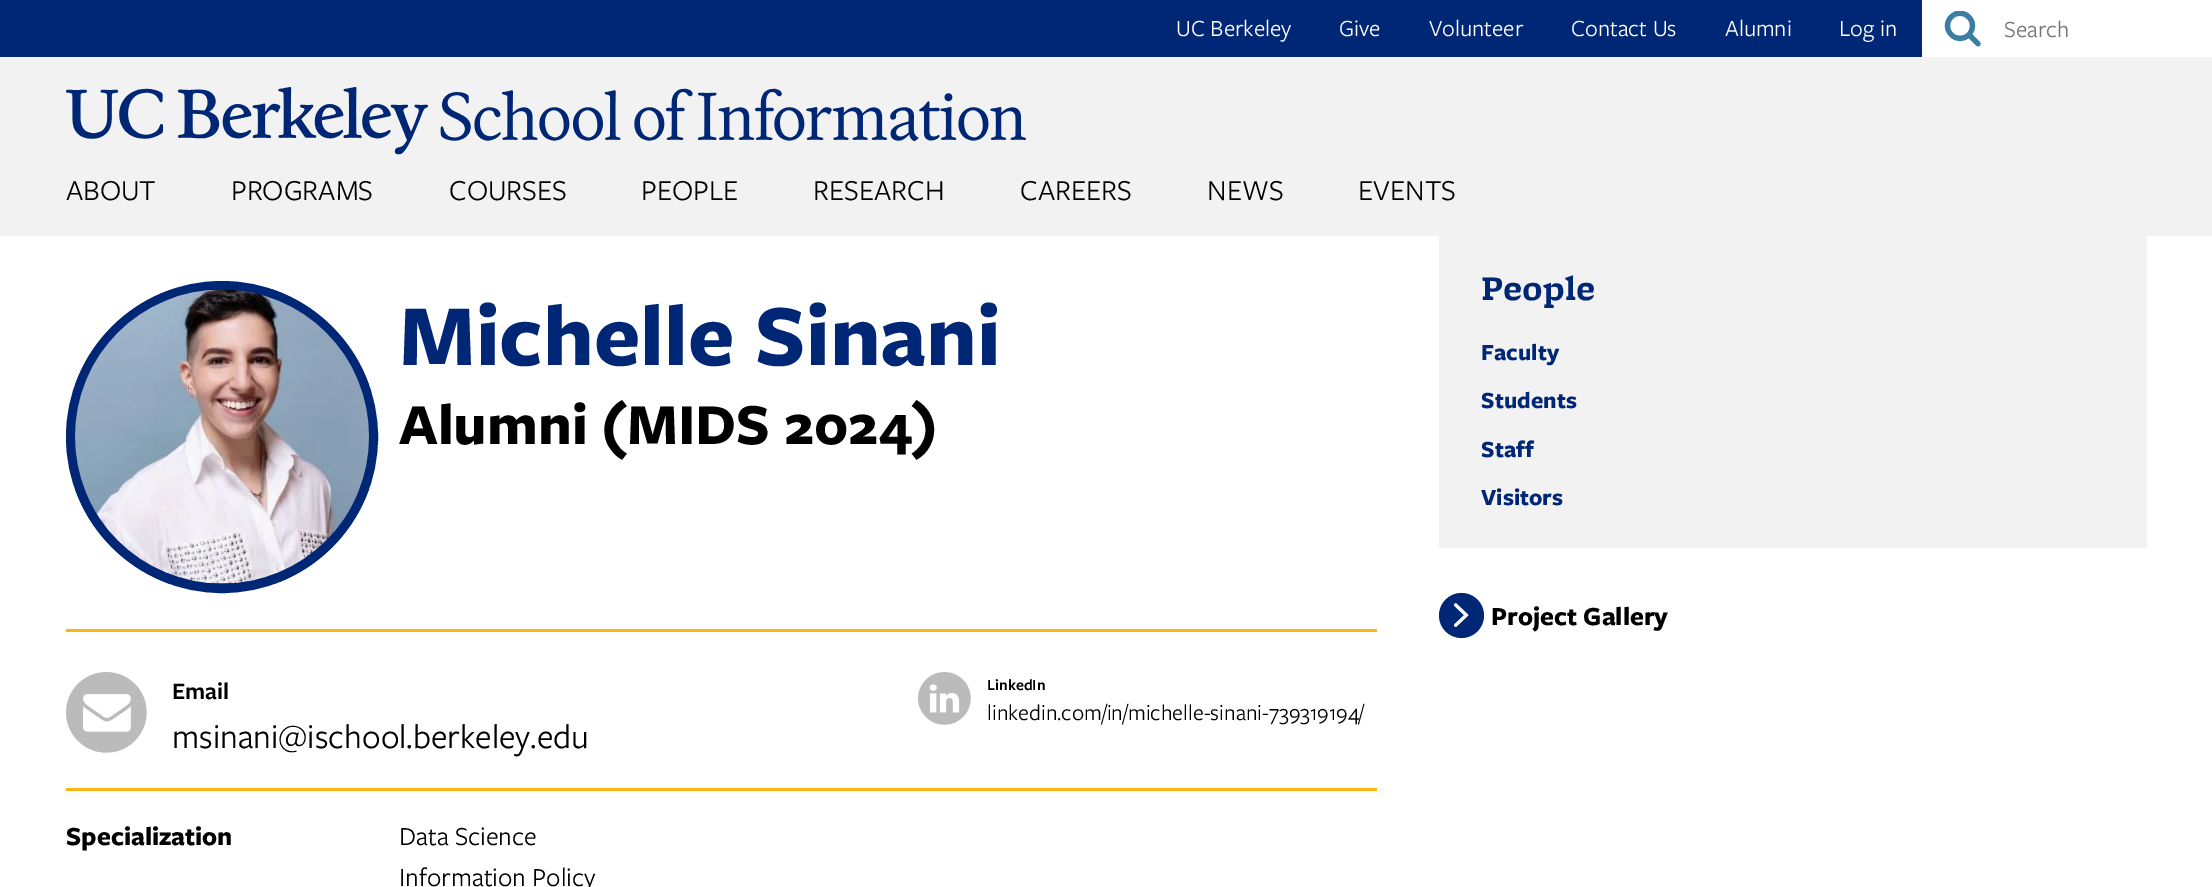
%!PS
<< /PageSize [2212 887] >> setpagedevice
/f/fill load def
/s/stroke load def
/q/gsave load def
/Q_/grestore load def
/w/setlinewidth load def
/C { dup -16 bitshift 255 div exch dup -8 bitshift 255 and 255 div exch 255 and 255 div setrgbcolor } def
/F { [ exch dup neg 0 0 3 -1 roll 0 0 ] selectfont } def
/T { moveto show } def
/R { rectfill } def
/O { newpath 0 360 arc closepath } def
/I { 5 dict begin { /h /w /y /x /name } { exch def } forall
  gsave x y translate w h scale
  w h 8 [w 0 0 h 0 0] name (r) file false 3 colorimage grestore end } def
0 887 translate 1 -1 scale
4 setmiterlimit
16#FFFFFF C
0 0 2212 887 R
16#F2F2F2 C
0 57 2212 179 R
16#002676 C
0 0 1922 57 R
/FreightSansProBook-Regular 24 F
16#FFFFFF C
(UC Berkeley) 1176 36 T
(Give) 1339 36 T
(Volunteer) 1429 36 T
(Contact Us) 1571 36 T
(Alumni) 1725 36 T
(Log in) 1839 36 T
(1.rgb) 1944 11 37 36 I
16#757575 C
(Search) 2004 37 T
(2.rgb) 66 87 960 68 I
/FreightSansProBook-Regular 30 F
16#000000 C
(ABOUT) 66 200 T
(PROGRAMS) 231 200 T
(COURSES) 449 200 T
(PEOPLE) 641 200 T
(RESEARCH) 813 200 T
(CAREERS) 1020 200 T
(NEWS) 1207 200 T
(EVENTS) 1358 200 T
16#FDB515 C
66 629 1311 3 R
16#002676 C
222 437 151.5 O q f Q_
9 w
s
(3.rgb) 75 289 294 295 I
/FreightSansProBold-Bold 90 F
(Michelle Sinani) 399 365 T
/FreightSansProBold-Bold 60 F
16#000000 C
(Alumni \(MIDS 2024\)) 399 444 T
16#FDB515 C
66 788 1311 3 R
(4.rgb) 66 672 81 81 I
/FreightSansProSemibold-SemiBold 24.5 F
16#000000 C
(Email) 172 699 T
/FreightSansProBook-Regular 35.1 F
(msinani@ischool.berkeley.edu) 172 748 T
(5.rgb) 918 672 53 53 I
/FreightSansProSemibold-SemiBold 16 F
(LinkedIn) 987 690 T
/FreightSansProBook-Regular 23 F
(linkedin.com/in/michelle-sinani-739319194/) 987 720 T
/FreightSansProBold-Bold 27 F
(Specialization) 66 845 T
/FreightSansProBook-Regular 27 F
(Data Science) 399 845 T
(Information Policy) 399 886 T
16#F2F2F2 C
1439 236 708 312 R
/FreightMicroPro-Bold 36 F
16#002676 C
(People) 1481 300 T
/FreightSansProBold-Bold 24 F
(Faculty) 1481 360 T
(Students) 1481 408 T
(Staff) 1481 457 T
(Visitors) 1481 505 T
1461.5 615.5 22.5 O f
(6.rgb) 1454 603 15 24 I
/FreightSansProBold-Bold 27 F
16#000000 C
(Project Gallery) 1491 625 T
showpage
